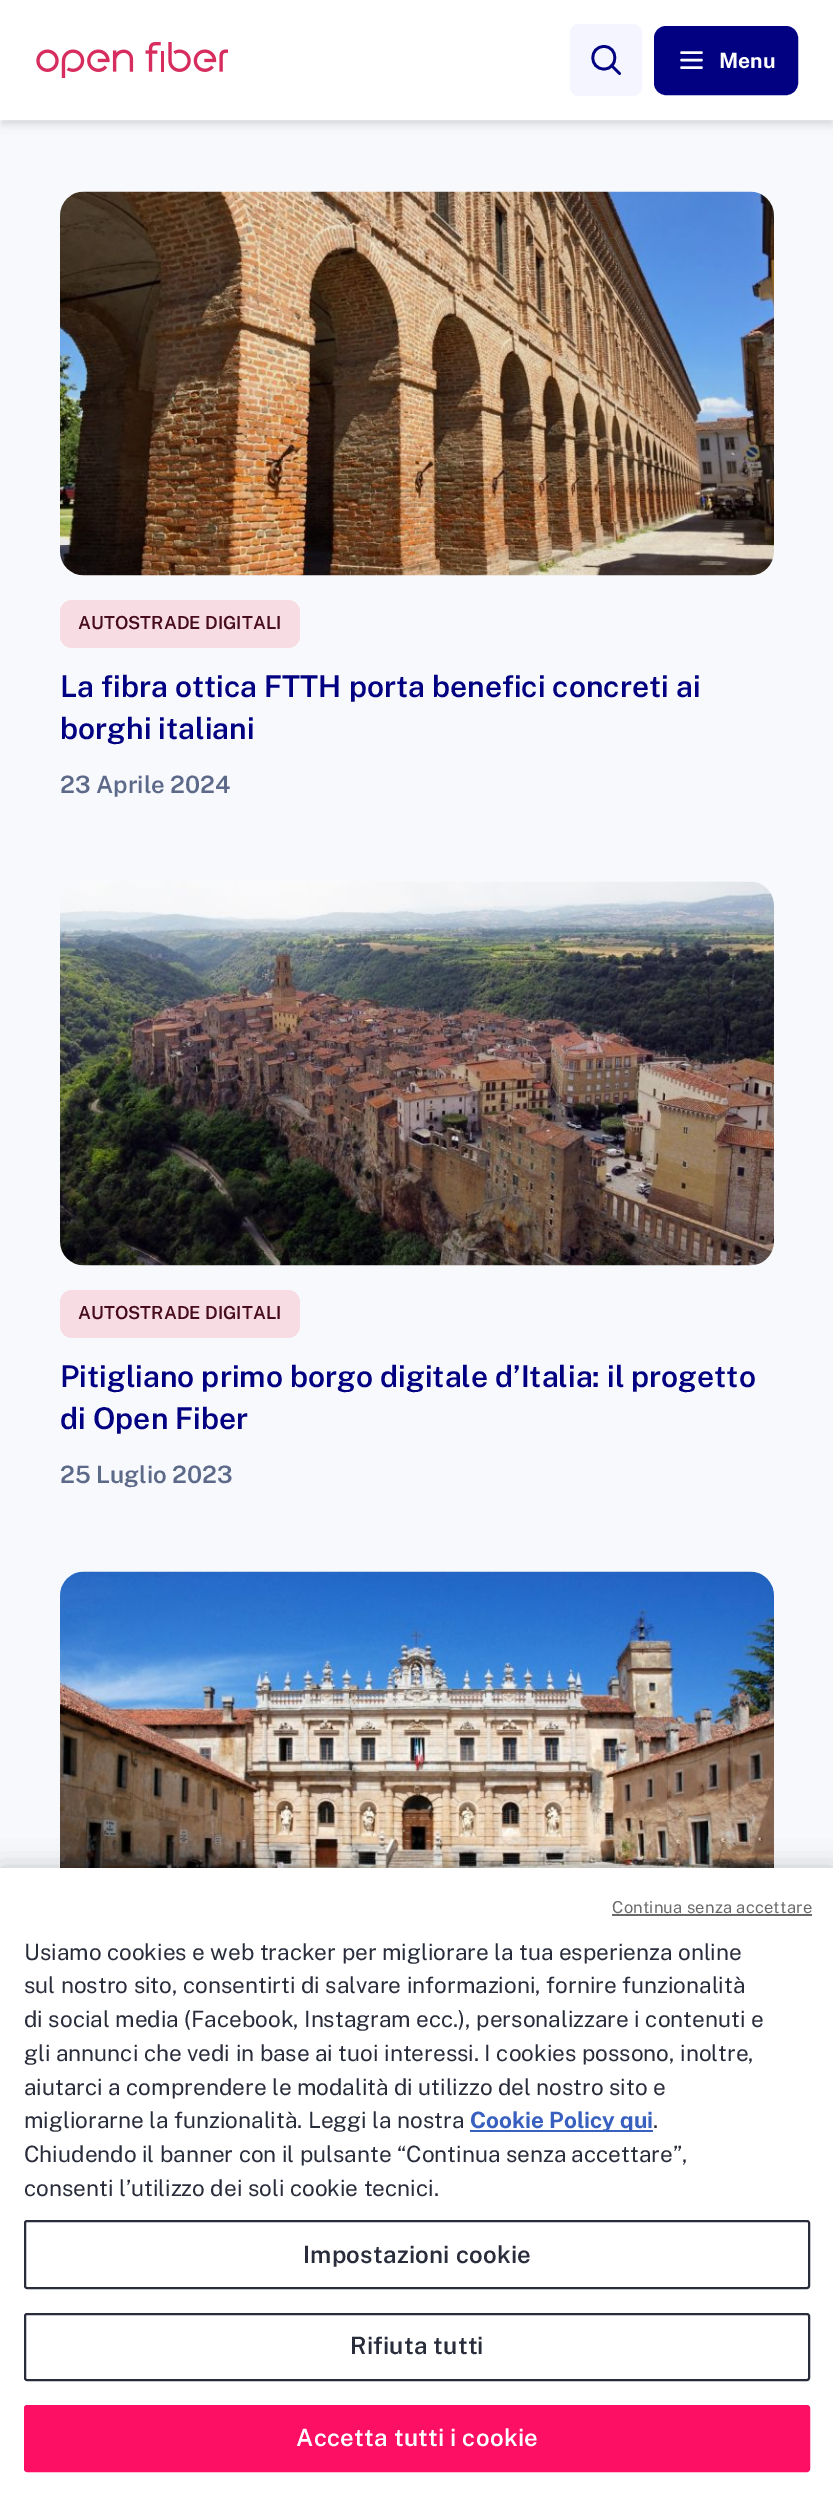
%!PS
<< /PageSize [833 2495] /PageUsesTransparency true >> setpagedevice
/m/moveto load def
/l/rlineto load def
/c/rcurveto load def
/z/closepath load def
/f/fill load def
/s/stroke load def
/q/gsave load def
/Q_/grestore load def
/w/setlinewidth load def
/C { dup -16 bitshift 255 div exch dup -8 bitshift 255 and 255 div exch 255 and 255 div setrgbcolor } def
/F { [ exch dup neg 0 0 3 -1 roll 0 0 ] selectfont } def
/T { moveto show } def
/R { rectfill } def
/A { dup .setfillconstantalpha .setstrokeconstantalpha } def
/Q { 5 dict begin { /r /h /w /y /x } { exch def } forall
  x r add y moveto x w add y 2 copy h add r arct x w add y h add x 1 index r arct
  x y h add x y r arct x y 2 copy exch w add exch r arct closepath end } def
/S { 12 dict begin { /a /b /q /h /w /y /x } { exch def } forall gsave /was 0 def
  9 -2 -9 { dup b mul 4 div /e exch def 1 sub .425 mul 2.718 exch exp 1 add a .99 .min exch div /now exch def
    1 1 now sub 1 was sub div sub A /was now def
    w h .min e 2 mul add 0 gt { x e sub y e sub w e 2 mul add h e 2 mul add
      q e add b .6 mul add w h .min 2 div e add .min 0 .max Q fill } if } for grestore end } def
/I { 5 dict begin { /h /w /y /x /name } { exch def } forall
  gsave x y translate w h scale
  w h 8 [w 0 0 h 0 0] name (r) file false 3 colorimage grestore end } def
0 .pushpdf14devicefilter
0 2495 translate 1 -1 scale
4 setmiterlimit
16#F8F9FC C
0 0 833 2495 R
16#000000 C
3 6 828 114 0 3 .1 S
2 8 831 117 0 4.5 .1 S
16#FFFFFF C
0 0 833 120 R
0.25 A
0 120 833 1 R
1 A
(1.rgb) 36 42 192 36 I
16#F5F5FF C
570 24 72 72 9 Q f
16#010182 C
2.7 w
1 setlinecap
1 setlinejoin
604 69 m 14.5 0 14.5 -22.5 0 -22.5 c -15 0 -15 22.5 0 22.5 c z 611.5 65.5 m 8 8 l s
655 27 142 67 11 Q q f Q_
2 w
0 setlinecap
0 setlinejoin
s
16#FFFFFF C
2.5 w
1 setlinecap
681.5 67.5 m 20 0 l 681.5 60 m 20 0 l 681.5 52.5 m 20 0 l s
/PublicSans-Bold 21 F
(Menu) 719 68 T
(2.rgb) 60 191 714 385 I
16#F8DCE4 C
60 600 240 48 12 Q f
/PublicSans-SemiBold 18 F
16#470D1E C
(AUTOSTRADE DIGITALI) 78 629 T
/PublicSans-SemiBold 30 F
16#010182 C
(La fibra ottica FTTH porta benefici concreti ai) 60 697 T
(borghi italiani) 60 739 T
/PublicSans-SemiBold 24 F
16#5D6989 C
(23 Aprile 2024) 60 793 T
(3.rgb) 60 881 714 385 I
16#F8DCE4 C
60 1290 240 48 12 Q f
/PublicSans-SemiBold 18 F
16#470D1E C
(AUTOSTRADE DIGITALI) 78 1319 T
/PublicSans-SemiBold 30 F
16#010182 C
(Pitigliano primo borgo digitale d’Italia: il progetto) 60 1387 T
(di Open Fiber) 60 1429 T
/PublicSans-SemiBold 24 F
16#5D6989 C
(25 Luglio 2023) 60 1483 T
(4.rgb) 60 1571 714 297 I
16#000000 C
0 1868 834 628 0 13.5 .2 S
16#FFFFFF C
0 1868 833 627 R
/PublicSans-Regular 16.5 F
16#696969 C
612 1913 m .2 0 (Continua senza accettare) ashow
612 1914 200 2 R
/PublicSans-Regular 22.5 F
16#292C3B C
(Usiamo cookies e web tracker per migliorare la tua esperienza online) 24 1960 T
(sul nostro sito, consentirti di salvare informazioni, fornire funzionalità) 24 1993 T
(di social media \(Facebook, Instagram ecc.\), personalizzare i contenuti e) 24 2027 T
(gli annunci che vedi in base ai tuoi interessi. I cookies possono, inoltre,) 24 2061 T
(aiutarci a comprendere le modalità di utilizzo del nostro sito e) 24 2095 T
(migliorarne la funzionalità. Leggi la nostra) 24 2128 T
16#3860BE C
470 2130 183 2 R
/PublicSans-Bold 22.5 F
(Cookie Policy qui) 470 2128 T
/PublicSans-Regular 22.5 F
16#292C3B C
(.) 653 2128 T
(Chiudendo il banner con il pulsante “Continua senza accettare”,) 24 2162 T
(consenti l’utilizzo dei soli cookie tecnici.) 24 2196 T
2 w
0 setlinecap
25 2221 784 67 2 Q s
/PublicSans-SemiBold 24 F
303 2263 m .25 0 (Impostazioni cookie) ashow
25 2314 784 66 2 Q s
350 2354 m .25 0 (Rifiuta tutti) ashow
16#FD0F64 C
25 2406 784 65 2 Q q f Q_
s
16#FFFFFF C
296 2446 m .25 0 (Accetta tutti i cookie) ashow
.poppdf14devicefilter showpage
